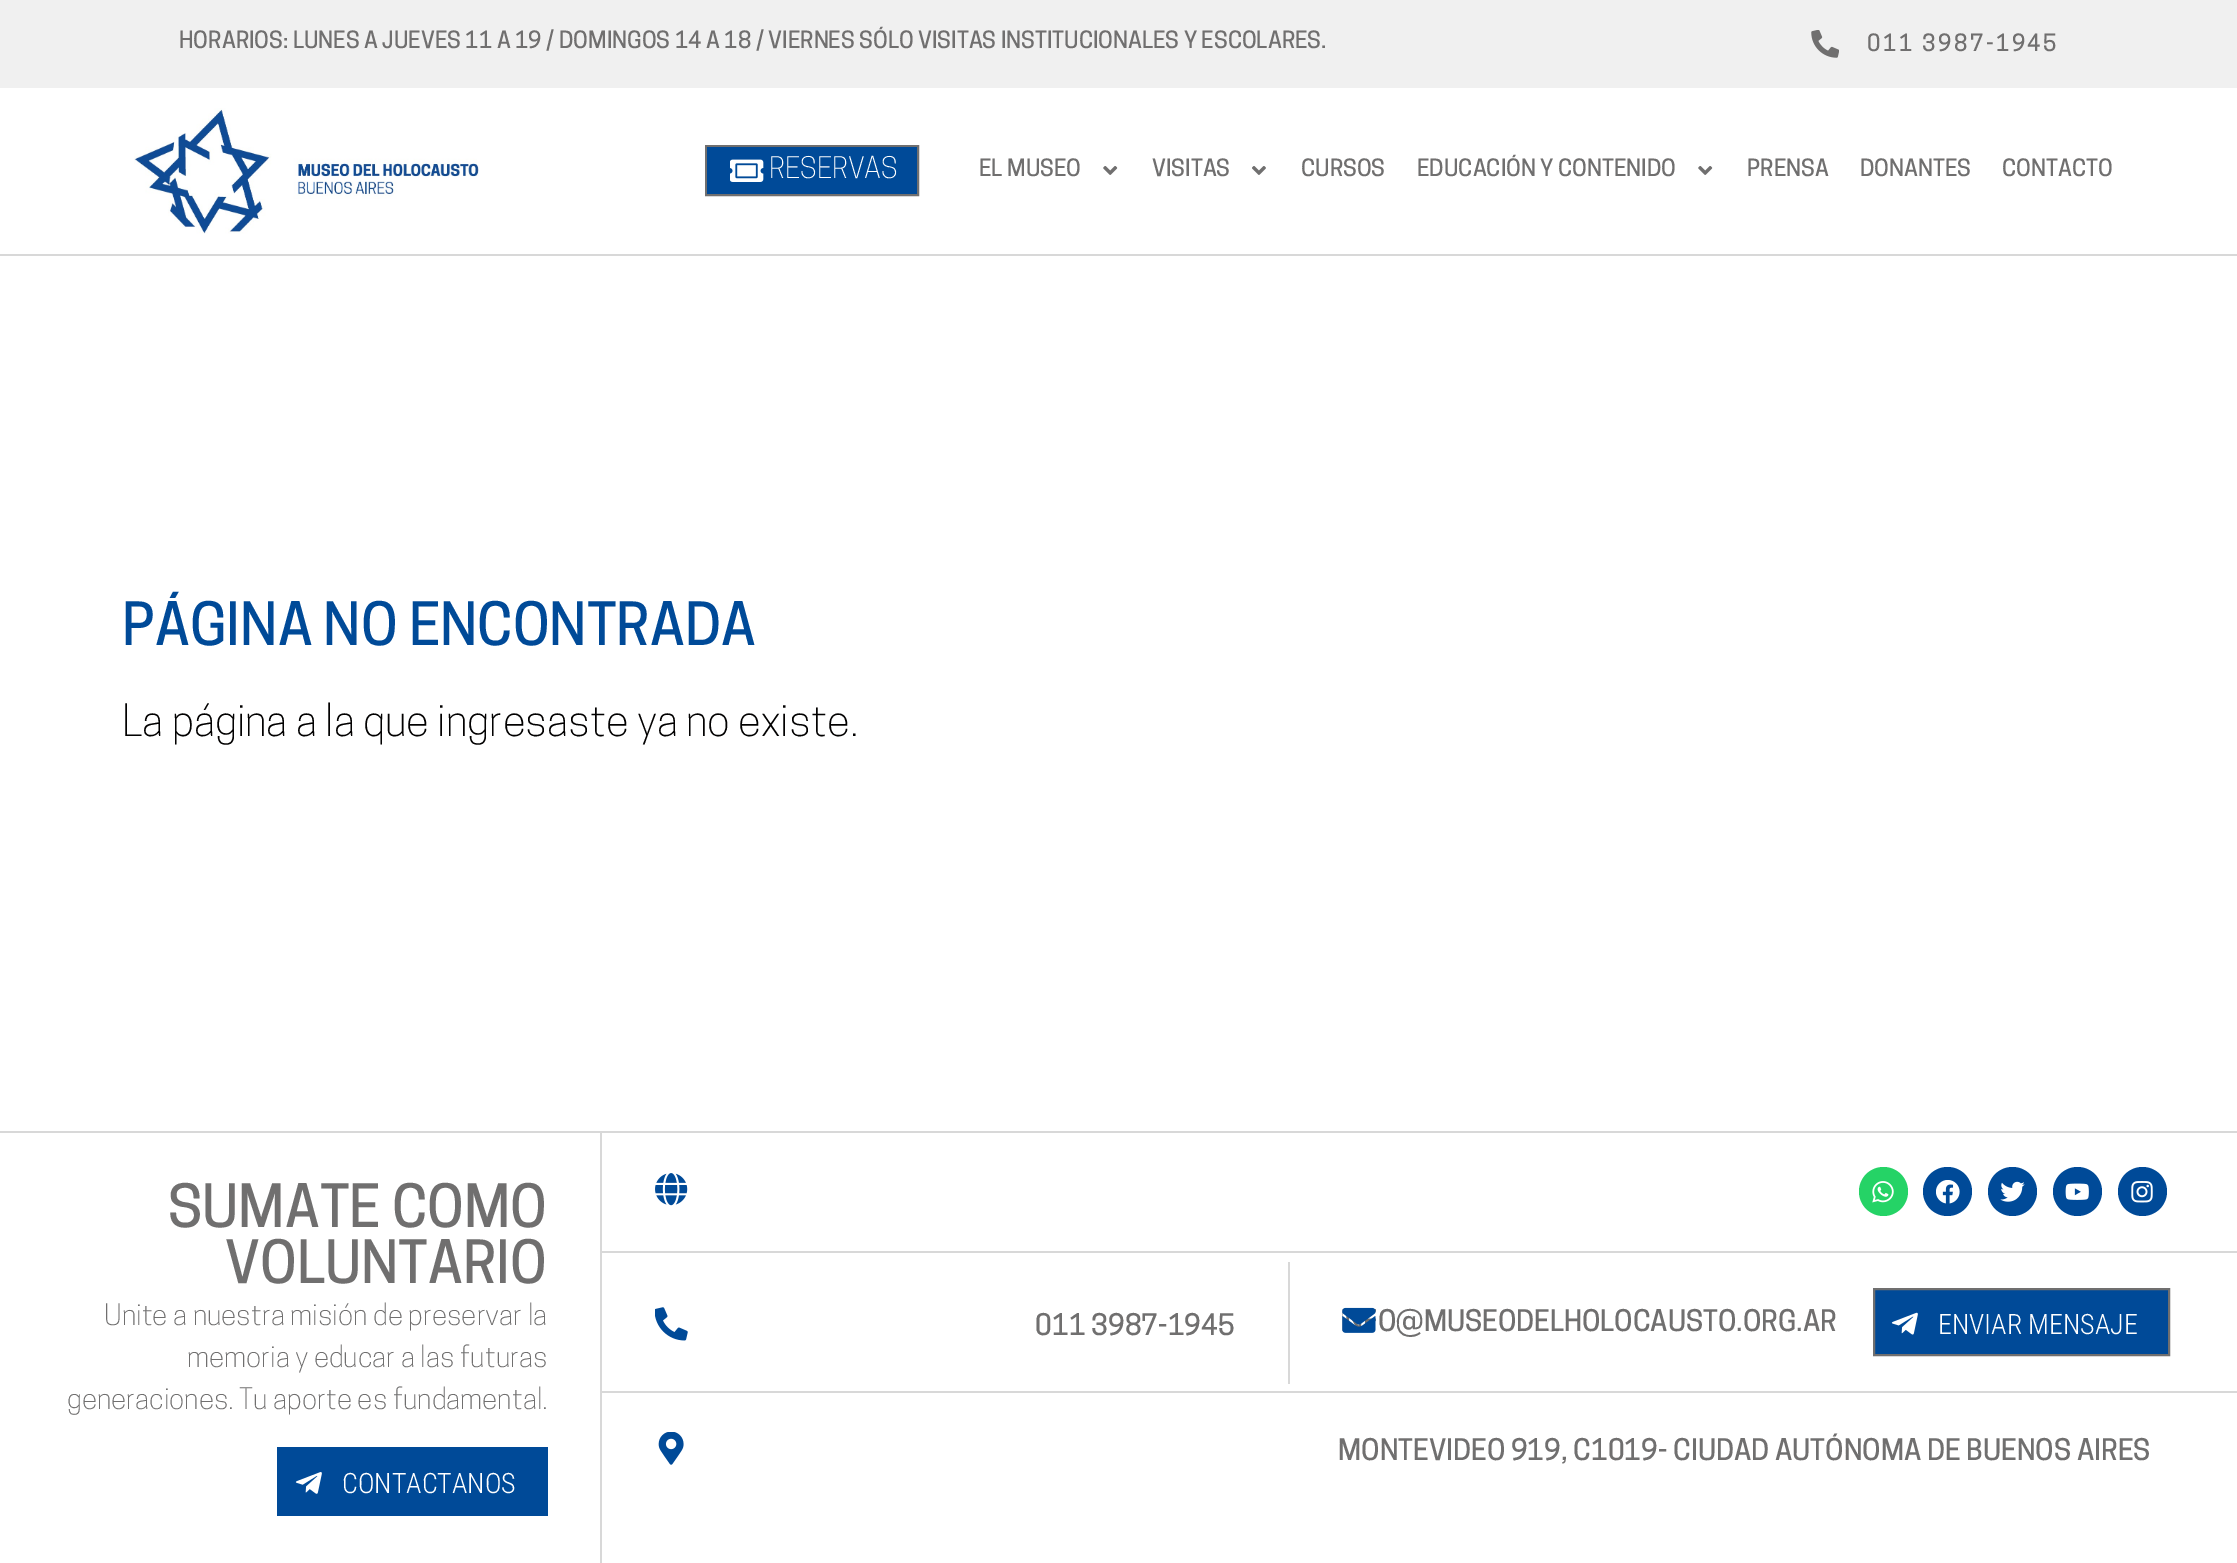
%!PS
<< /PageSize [2237 1563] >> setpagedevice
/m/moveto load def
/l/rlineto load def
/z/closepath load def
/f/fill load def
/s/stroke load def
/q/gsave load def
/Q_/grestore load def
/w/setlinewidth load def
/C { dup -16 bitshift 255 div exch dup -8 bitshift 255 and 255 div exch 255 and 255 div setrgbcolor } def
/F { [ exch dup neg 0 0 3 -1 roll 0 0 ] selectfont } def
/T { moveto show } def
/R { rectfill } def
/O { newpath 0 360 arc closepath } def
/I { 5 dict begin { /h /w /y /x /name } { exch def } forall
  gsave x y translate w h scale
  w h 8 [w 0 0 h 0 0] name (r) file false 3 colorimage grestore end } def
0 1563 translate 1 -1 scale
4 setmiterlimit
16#FFFFFF C
0 0 2237 1563 R
16#F0F0F0 C
0 0 2237 88 R
/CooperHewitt-Medium 22.4 F
16#706F6F C
(HORARIOS: LUNES A JUEVES 11 A 19 / DOMINGOS 14 A 18 / VIERNES SÓLO VISITAS INSTITUCIONALES Y ESCOLARES.) 179 48 T
(1.rgb) 1811 30 28 28 I
1867 51 m 2.5 0 (011 3987-1945) ashow
16#D8D8D8 C
0 254 2237 2 R
(2.rgb) 134 108 345 126 I
16#706F6F C
2 w
706 146 212 49 rectstroke
16#004A98 C
707 147 210 47 R
(3.rgb) 730 159 34 23 I
/CooperHewitt-Light 28 F
16#FFFFFF C
(RESERVAS) 769 178 T
/CooperHewitt-Medium 22.4 F
16#706F6F C
(EL MUSEO) 979 176 T
(4.rgb) 1103 166 15 9 I
(VISITAS) 1152 176 T
(5.rgb) 1252 166 14 9 I
(CURSOS) 1301 176 T
(EDUCACIÓN Y CONTENIDO) 1417 176 T
(4.rgb) 1698 166 15 9 I
(PRENSA) 1747 176 T
(DONANTES) 1860 176 T
(CONTACTO) 2002 176 T
/CooperHewitt-Medium 56 F
16#004A98 C
(PÁGINA NO ENCONTRADA) 122 645 T
/CooperHewitt-Light 42 F
16#020101 C
(La página a la que ingresaste ya no existe.) 122 736 T
16#D8D8D8 C
0 1131 2237 2 R
600 1132 2 431 R
/CooperHewitt-Medium 56 F
16#706F6F C
(SUMATE COMO) 168 1227 T
(VOLUNTARIO) 225 1283 T
/CooperHewitt-Light 28 F
(Unite a nuestra misión de preservar la) 104 1325 T
(memoria y educar a las futuras) 187 1367 T
(generaciones. Tu aporte es fundamental.) 67 1409 T
16#004A98 C
277 1447 271 69 R
(6.rgb) 295 1472 27 22 I
/RobotoCondensed-Light 28 F
16#FFFFFF C
(CONTACTANOS) 342 1493 T
16#D8D8D8 C
602 1251 1635 2 R
(7.rgb) 655 1173 33 33 I
16#25D366 C
1883.5 1191.5 24.5 O f
(8.rgb) 1872 1181 22 22 I
16#004A98 C
1947.5 1191.5 24.5 O f
(9.rgb) 1936 1180 24 24 I
2012.5 1191.5 24.5 O f
(10.rgb) 2000 1181 25 21 I
2077.5 1191.5 24.5 O f
(11.rgb) 2065 1183 24 17 I
2142.5 1191.5 24.5 O f
(12.rgb) 2131 1181 22 22 I
16#D8D8D8 C
602 1391 1635 2 R
1288 1262 2 122 R
(13.rgb) 655 1307 33 34 I
/CooperHewitt-Medium 28 F
16#706F6F C
(011 3987-1945) 1035 1335 T
(14.rgb) 1342 1307 34 26 I
(O@MUSEODELHOLOCAUSTO.ORG.AR) 1378 1331 T
16#004A98 C
1874 1289 m 295 0 l 0 66 l -295 0 l z q f Q_
16#706F6F C
s
(15.rgb) 1891 1312 27 23 I
/RobotoCondensed-Light 28 F
16#FFFFFF C
(ENVIAR MENSAJE) 1938 1334 T
(16.rgb) 658 1432 26 33 I
/CooperHewitt-Medium 28 F
16#706F6F C
(MONTEVIDEO 919, C1019- CIUDAD AUTÓNOMA DE BUENOS AIRES) 1338 1460 T
showpage
